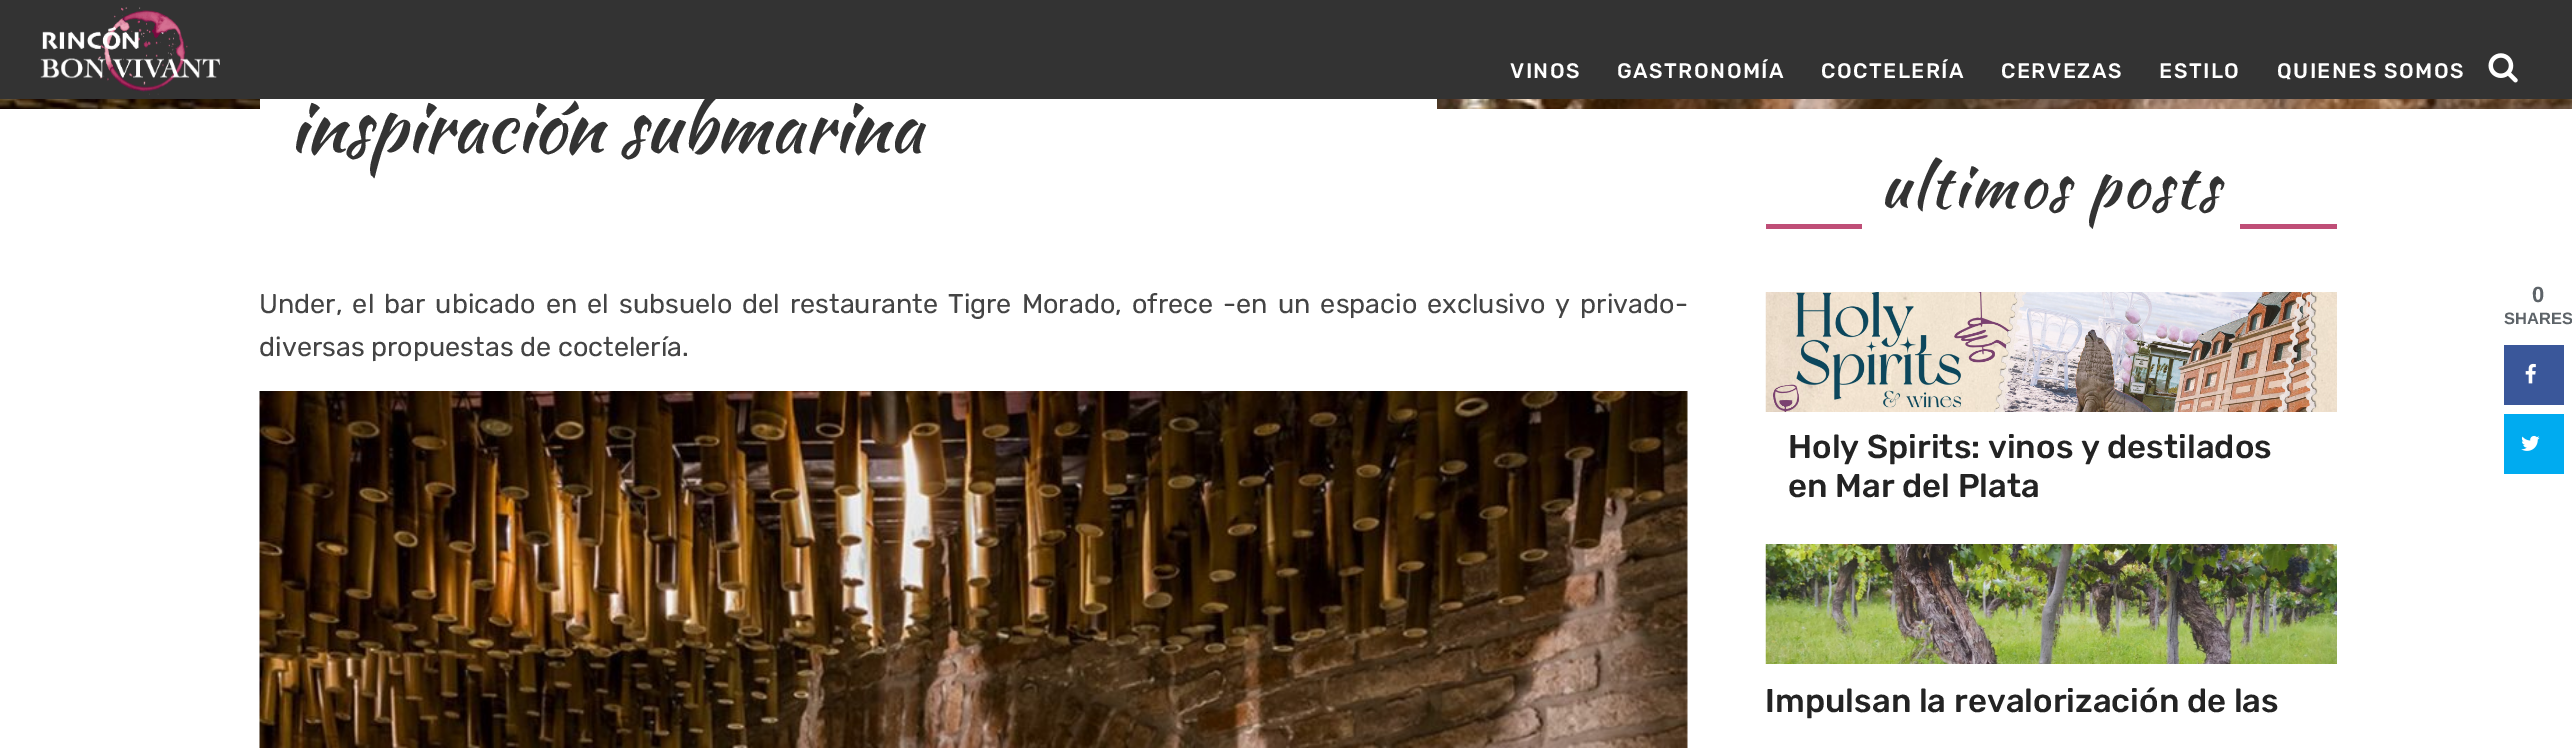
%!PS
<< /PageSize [2572 748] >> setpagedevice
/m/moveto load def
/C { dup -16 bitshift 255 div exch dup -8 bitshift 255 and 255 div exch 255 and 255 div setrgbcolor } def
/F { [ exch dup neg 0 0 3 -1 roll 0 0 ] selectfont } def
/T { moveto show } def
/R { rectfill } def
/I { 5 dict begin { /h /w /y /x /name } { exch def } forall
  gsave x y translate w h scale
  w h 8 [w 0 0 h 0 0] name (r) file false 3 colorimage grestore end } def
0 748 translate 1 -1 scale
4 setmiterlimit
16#FFFFFF C
0 0 2572 748 R
16#333333 C
0 0 2572 99 R
(1.rgb) 40 7 180 88 I
/Rubik-Medium 21 F
16#FFFFFF C
1510 78 m 1.5 0 (VINOS) ashow
1617 78 m 1.5 0 (GASTRONOMÍA) ashow
1821 78 m 1.5 0 (COCTELERÍA) ashow
2001 78 m 1.5 0 (CERVEZAS) ashow
2159 78 m 1.5 0 (ESTILO) ashow
2277 78 m 1.5 0 (QUIENES SOMOS) ashow
(2.rgb) 2488 53 30 30 I
(6.rgb) 0 99 2572 10 I
260 99 1177 10 R
/KaushanScript-Regular 72 F
16#333333 C
(inspiración submarina) 289 152 T
/Rubik-Regular 27 F
16#444444 C
259 313 m 3.4 0 32 (Under, el bar ubicado en el subsuelo del restaurante Tigre Morado, ofrece -en un espacio exclusivo y privado-) widthshow
(diversas propuestas de coctelería.) 259 356 T
(3.rgb) 259 391 1429 357 I
16#BF4E77 C
1766 224 571 5 R
16#FFFFFF C
1862 224 378 5 R
/KaushanScript-Regular 60 F
16#333333 C
1880 207 m 2.8 0 (ultimos posts) ashow
(4.rgb) 1765 292 572 120 I
/Rubik-Medium 33 F
16#232323 C
(Holy Spirits: vinos y destilados) 1788 458 T
(en Mar del Plata) 1788 497 T
(5.rgb) 1765 544 572 120 I
(Impulsan la revalorización de las) 1765 712 T
/LiberationSans-Bold 22 F
16#5D6368 C
(0) 2532 302 T
/LiberationSans-Bold 16.5 F
(SHARES) 2504 324 T
16#3A579A C
2504 345 60 60 R
(7.rgb) 2525 363 11 21 I
16#00ABF0 C
2504 414 60 60 R
(8.rgb) 2521 435 19 16 I
showpage
